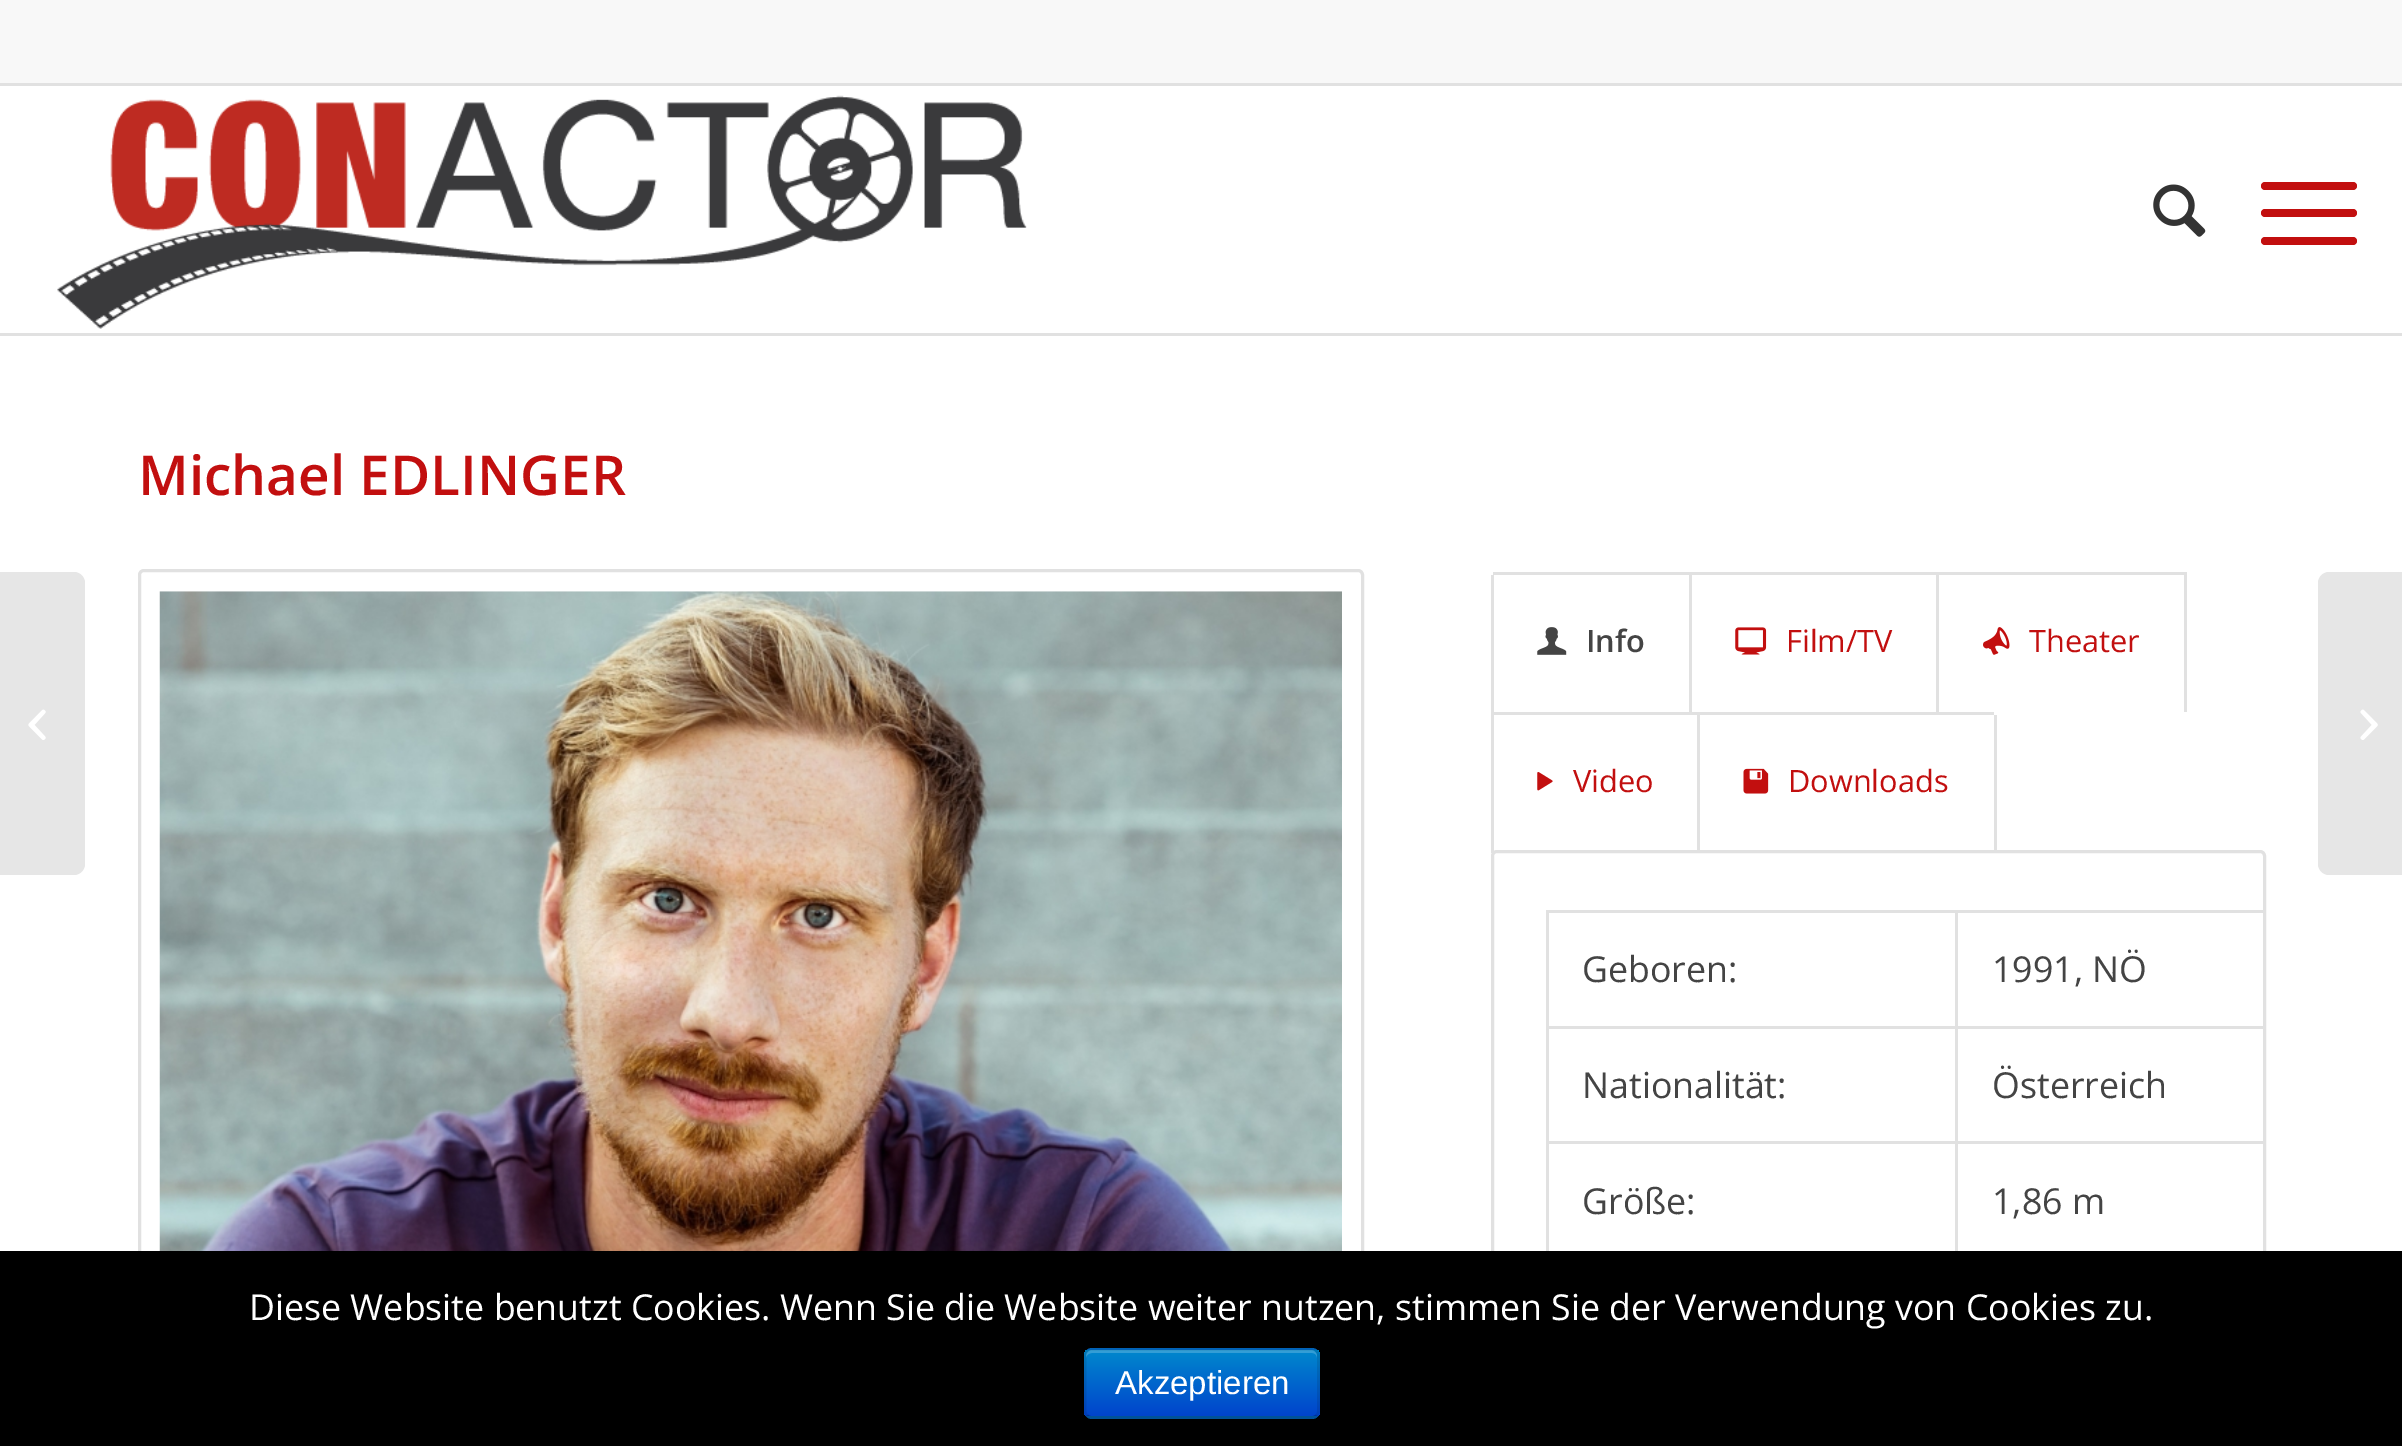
%!PS
<< /PageSize [2402 1446] /PageUsesTransparency true >> setpagedevice
/m/moveto load def
/l/rlineto load def
/c/rcurveto load def
/z/closepath load def
/f/fill load def
/s/stroke load def
/q/gsave load def
/Q_/grestore load def
/w/setlinewidth load def
/C { dup -16 bitshift 255 div exch dup -8 bitshift 255 and 255 div exch 255 and 255 div setrgbcolor } def
/F { [ exch dup neg 0 0 3 -1 roll 0 0 ] selectfont } def
/T { moveto show } def
/R { rectfill } def
/A { dup .setfillconstantalpha .setstrokeconstantalpha } def
/Q { 5 dict begin { /r /h /w /y /x } { exch def } forall
  x r add y moveto x w add y 2 copy h add r arct x w add y h add x 1 index r arct
  x y h add x y r arct x y 2 copy exch w add exch r arct closepath end } def
/I { 5 dict begin { /h /w /y /x /name } { exch def } forall
  gsave x y translate w h scale
  w h 8 [w 0 0 h 0 0] name (r) file false 3 colorimage grestore end } def
0 .pushpdf14devicefilter
0 1446 translate 1 -1 scale
4 setmiterlimit
16#FFFFFF C
0 0 2402 1446 R
16#F8F8F8 C
0 0 2402 83 R
16#E1E1E1 C
0 83 2402 3 R
0 333 2402 3 R
(1.rgb) 57 95 970 234 I
(2.rgb) 2153 184 53 53 I
16#C20F0F C
2261 209 96 8 4 Q f
2261 182 96 8 4 Q f
2261 237 96 8 4 Q f
16#E6E6E6 C
0 572 m 74 0 l 6 0 11 5 11 11 c 0 281 l 0 6 -5 11 -11 11 c -74 0 l z f
(3.rgb) 28 709 18 31 I
/OpenSans-SemiBold 55 F
16#C20F0F C
(Michael EDLINGER) 138 495 T
16#E1E1E1 C
3 w
144 570.5 m 1214 0 l 2.5 0 4.5 2 4.5 4.5 c 0 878.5 l -1223 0 l 0 -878.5 l 0 -2.5 2 -4.5 4.5 -4.5 c z s
(4.rgb) 159 591 1183 660 I
1689 572 250 3 R
16#FFFFFF C
1497 572 m 194 0 l 0 140 l -200 0 l 0 -134 l 0 -3.5 2.5 -6 6 -6 c z f
16#E1E1E1 C
1493 572 198 3 R
1689 572 3 140 R
1491 575 3 137 R
(5.rgb) 1537 627 30 28 I
/OpenSans-SemiBold 30.75 F
16#444444 C
(Info) 1586 652 T
16#E1E1E1 C
1936 572 3 140 R
(6.rgb) 1735 627 32 28 I
/OpenSans-Regular 30.75 F
16#C20F0F C
(Film/TV) 1786 652 T
16#E1E1E1 C
1936 572 250 3 R
2184 572 3 140 R
(7.rgb) 1983 627 27 28 I
16#C20F0F C
(Theater) 2029 652 T
16#E1E1E1 C
1491 712 209 3 R
1492.5 851.5 772 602 4.5 Q s
1697 712 3 141 R
1491 712 3 141 R
(8.rgb) 1537 772 16 19 I
16#C20F0F C
(Video) 1573 792 T
16#E1E1E1 C
1697 712 297 3 R
1994 715 3 138 R
(9.rgb) 1743 768 26 26 I
16#C20F0F C
(Downloads) 1788 792 T
16#E1E1E1 C
1546 910 717 3 R
1955 1141 3 110 R
1955 1141 308 3 R
1955 1026 3 118 R
1955 1026 308 3 R
1955 910 3 119 R
1546 1141 3 110 R
1546 1141 412 3 R
1546 1026 3 118 R
1546 1026 412 3 R
1546 910 3 119 R
/OpenSans-Regular 35.75 F
16#444444 C
(Geboren:) 1582 982 T
(1991, NÖ) 1992 982 T
(Nationalität:) 1582 1098 T
(Österreich) 1992 1098 T
(Größe:) 1582 1214 T
(1,86 m) 1992 1214 T
16#E6E6E6 C
2329 572 m 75 0 l 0 303 l -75 0 l -6 0 -11 -5 -11 -11 c 0 -281 l 0 -6 5 -11 11 -11 c z f
(10.rgb) 2360 709 18 31 I
16#000000 C
0 1251 2402 195 R
16#FFFFFF C
(Diese Website benutzt Cookies. Wenn Sie die Website weiter nutzen, stimmen Sie der Verwendung von Cookies zu.) 249 1320 T
16#006DCC C
1084 1348 236 71 8 Q f
q
1084 1348 236 71 8 Q clip newpath
q 1084 1350 m 236 0 l 0 66 l -236 0 l z clip newpath
<< /ShadingType 2 /ColorSpace /DeviceRGB /Coords [1202 1350 1202 1416] /Extend [true true] /Function << /FunctionType 2 /Domain [0 1] /C0 [0 .533 .8] /C1 [0 .267 .8] /N 1 >> >> shfill Q_
Q_
0.2 A
16#FFFFFF C
1092 1353 m 220 0 l 3 0 5 2 5 5 c 0 -2 l 0 -3 -3 -6 -6 -6 c -219 0 l -3 0 -6 3 -6 6 c 0 2 l 0 -3 3 -5 6 -5 c z f
0.25 A
16#000000 C
2.8 w
1316.5 1415.5 m -1 1.5 -3 2 -4.5 2 c -220 0 l -2 0 -4 -.5 -5 -2 c s
0.1 A
1087 1415.5 m -1.5 -1 -2 -3 -2 -4.5 c 0 -55 l 0 -2 .5 -4 2 -5 c 1 -1.5 3 -2 5 -2 c 220 0 l 1.5 0 3.5 .5 4.5 2 c 1.5 1 2 3 2 5 c 0 55 l 0 1.5 -.5 3.5 -2 4.5 c s
/LiberationSans-Regular 33 F
1 A
16#FFFFFF C
(Akzeptieren) 1115 1394 T
.poppdf14devicefilter showpage
